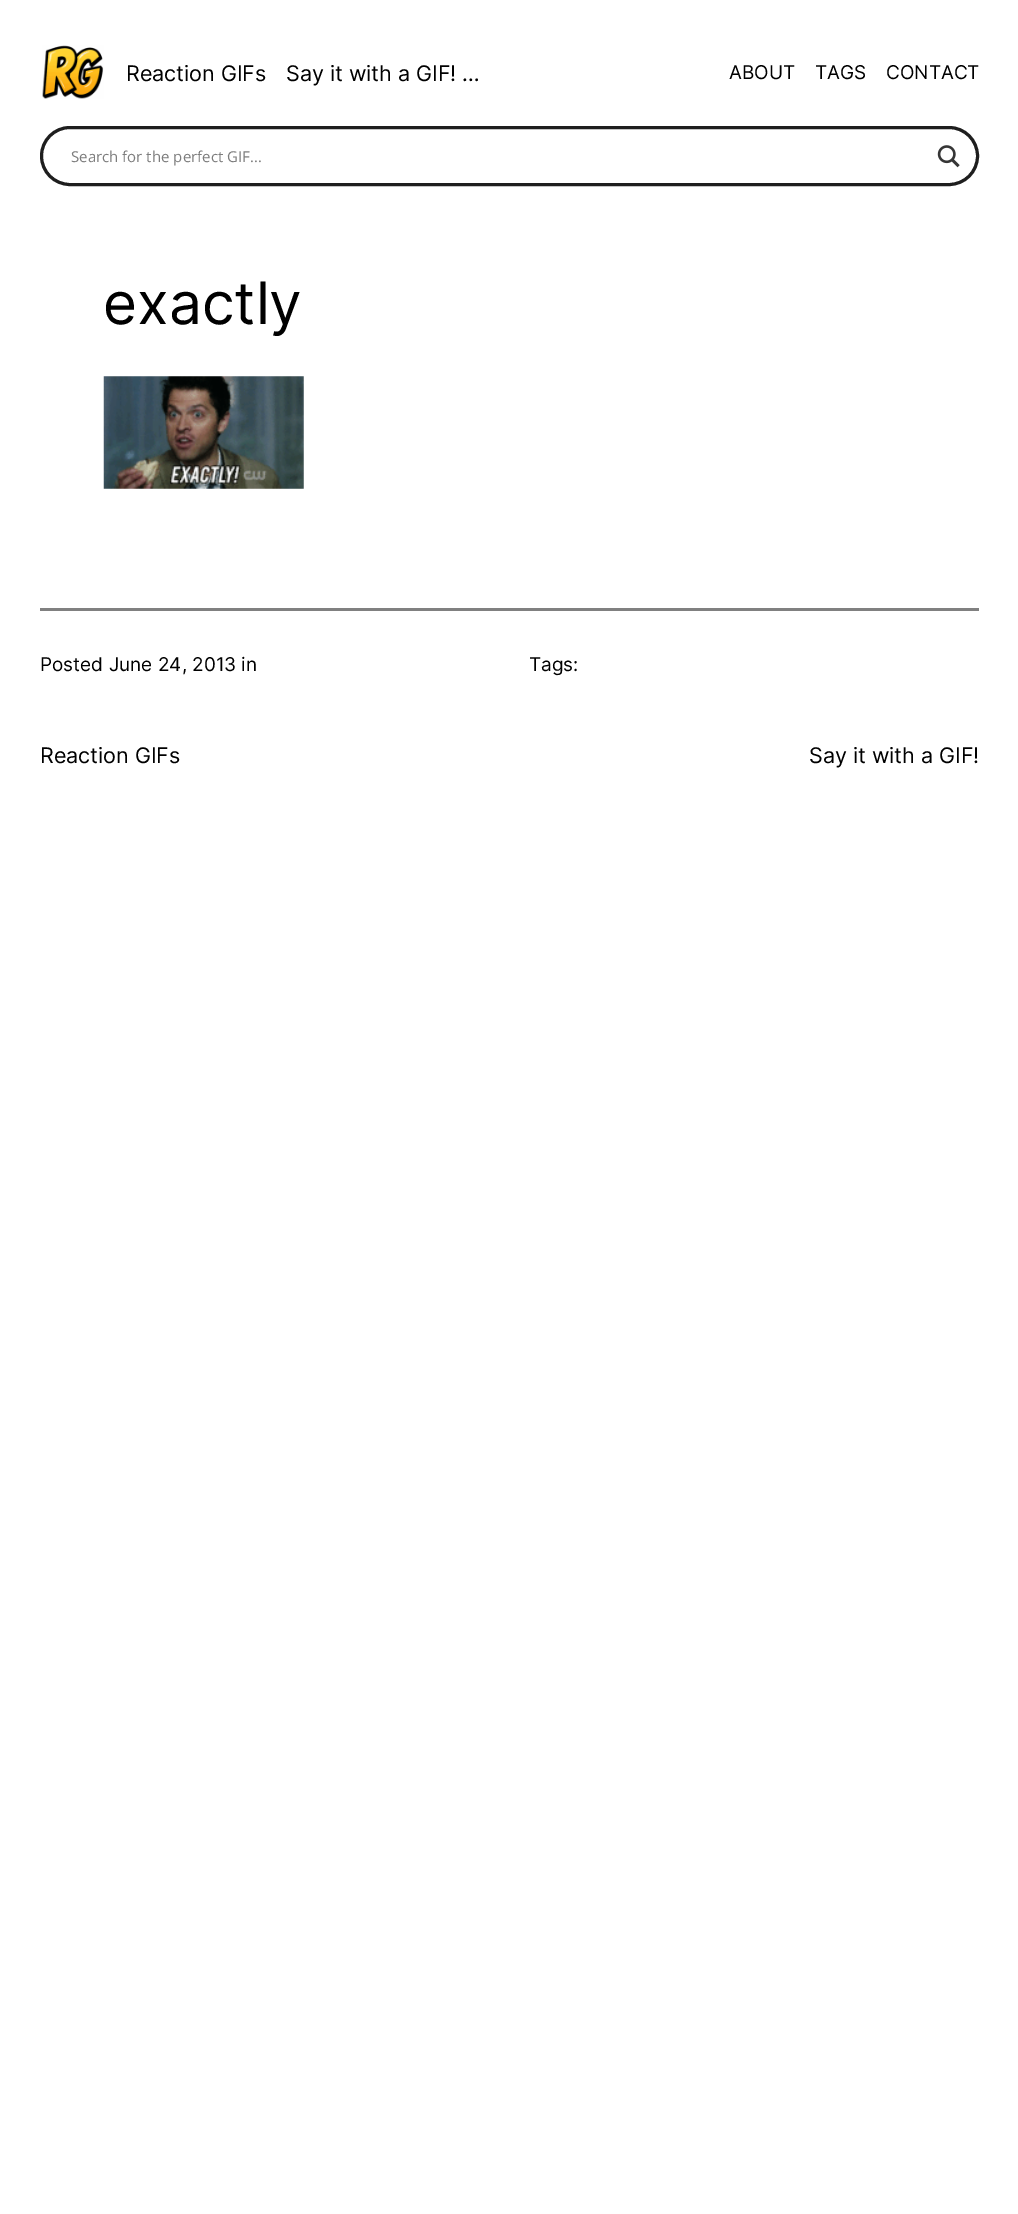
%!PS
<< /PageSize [1018 2214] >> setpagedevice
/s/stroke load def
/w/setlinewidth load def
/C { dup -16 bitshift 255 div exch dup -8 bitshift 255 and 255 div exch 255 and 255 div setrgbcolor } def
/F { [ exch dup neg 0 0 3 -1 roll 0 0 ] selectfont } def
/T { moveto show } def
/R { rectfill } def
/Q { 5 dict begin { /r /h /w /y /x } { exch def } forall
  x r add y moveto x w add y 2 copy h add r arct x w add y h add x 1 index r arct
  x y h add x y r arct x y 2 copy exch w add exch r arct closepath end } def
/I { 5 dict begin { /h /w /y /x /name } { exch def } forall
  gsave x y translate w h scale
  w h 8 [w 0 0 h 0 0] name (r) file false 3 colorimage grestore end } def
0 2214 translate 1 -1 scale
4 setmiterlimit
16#FFFFFF C
0 0 1018 2214 R
(1.rgb) 42 45 62 54 I
/Inter-Regular 21.5 F
16#000000 C
(Reaction GIFs) 126 81 T
(Say it with a GIF! …) 286 81 T
/Inter-Regular 19 F
(ABOUT) 729 79 T
(TAGS) 815 79 T
(CONTACT) 886 79 T
16#1E1E1E C
3 w
41.5 127.5 936 57 28.5 Q s
/OpenSans-Regular 15 F
16#7D7D7D C
(Search for the perfect GIF...) 71 162 T
(2.rgb) 937 145 23 23 I
/Inter-Regular 58.5 F
16#000000 C
(exactly) 103 324 T
(3.rgb) 103 376 201 113 I
16#808080 C
40 608 939 3 R
/Inter-Regular 19 F
16#000000 C
(Posted) 40 671 T
(June 24, 2013) 109 671 T
(in) 241 671 T
(Tags:) 529 671 T
/Inter-Regular 21.5 F
(Reaction GIFs) 40 763 T
(Say it with a GIF!) 809 763 T
showpage
